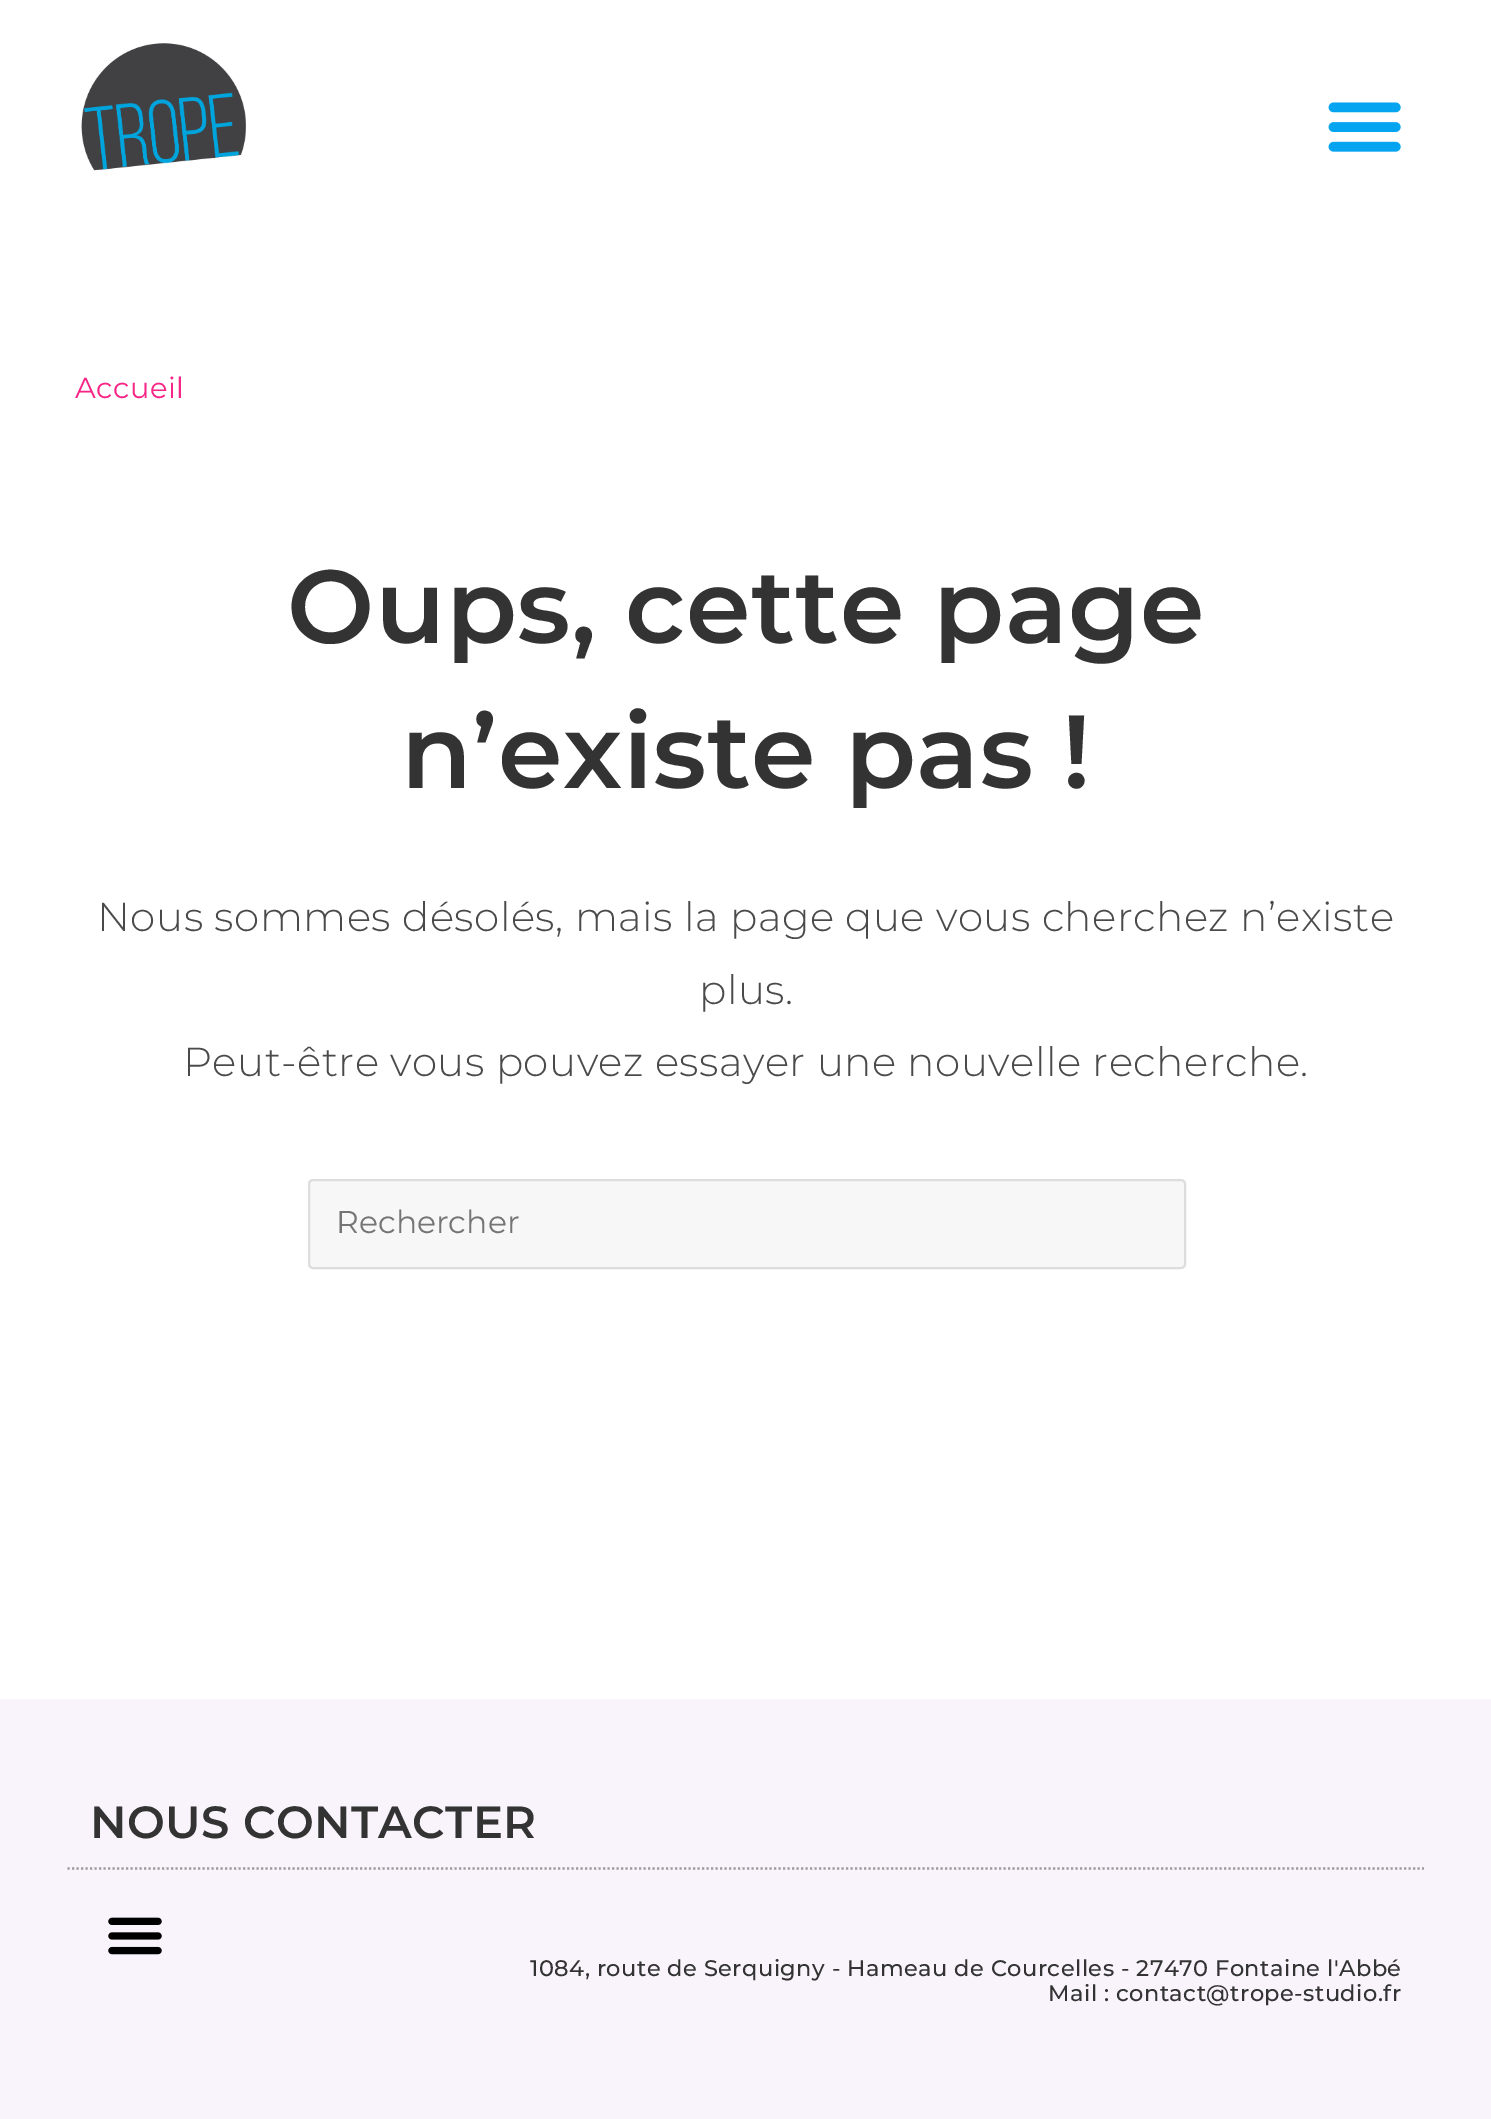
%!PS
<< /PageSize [1491 2119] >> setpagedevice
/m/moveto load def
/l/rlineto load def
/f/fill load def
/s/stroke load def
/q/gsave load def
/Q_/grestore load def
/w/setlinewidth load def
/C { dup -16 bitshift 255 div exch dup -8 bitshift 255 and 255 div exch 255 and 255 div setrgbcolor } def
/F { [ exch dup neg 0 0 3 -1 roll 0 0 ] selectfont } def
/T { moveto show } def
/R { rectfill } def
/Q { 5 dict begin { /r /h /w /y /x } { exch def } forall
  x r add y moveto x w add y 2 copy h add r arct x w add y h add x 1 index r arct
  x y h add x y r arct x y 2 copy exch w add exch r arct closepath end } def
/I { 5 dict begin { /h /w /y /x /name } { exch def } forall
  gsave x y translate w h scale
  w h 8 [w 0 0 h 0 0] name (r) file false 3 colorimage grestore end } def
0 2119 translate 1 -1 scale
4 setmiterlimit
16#FFFFFF C
0 0 1491 2119 R
(1.rgb) 81 43 165 128 I
(2.rgb) 1328 102 73 50 I
/Montserrat-Regular 29 F
16#F72585 C
75 398 m .45 0 (Accueil) ashow
/Montserrat-SemiBold 103.5 F
16#333333 C
287 643 m .45 0 (Oups, cette page) ashow
401 788 m .45 0 (n’existe pas !) ashow
/Montserrat-Light 40.5 F
16#4A4A4A C
97 931 m .45 0 (Nous sommes désolés, mais la page que vous cherchez n’existe) ashow
699 1004 m .45 0 (plus.) ashow
183 1076 m .45 0 (Peut-être vous pouvez essayer une nouvelle recherche.) ashow
16#F7F7F7 C
309 1180 876 88 4 Q q f Q_
16#DDDDDD C
2 w
s
/Montserrat-Regular 31.5 F
16#757575 C
(Rechercher) 336 1233 T
16#F9F4FC C
0 1699 1491 420 R
16#9B9B9B C
2.2 w
[2.25 2.25] 0 setdash
67.5 1868.5 m 1356.5 0 l s
/Montserrat-SemiBold 45 F
16#333333 C
90 1838 m .45 0 (NOUS CONTACTER) ashow
(3.rgb) 108 1917 54 38 I
/Montserrat-Medium 22.5 F
530 1976 m .45 0 (1084, route de Serquigny - Hameau de Courcelles - 27470 Fontaine l'Abbé) ashow
1048 2001 m .45 0 (Mail : contact@trope-studio.fr) ashow
showpage
